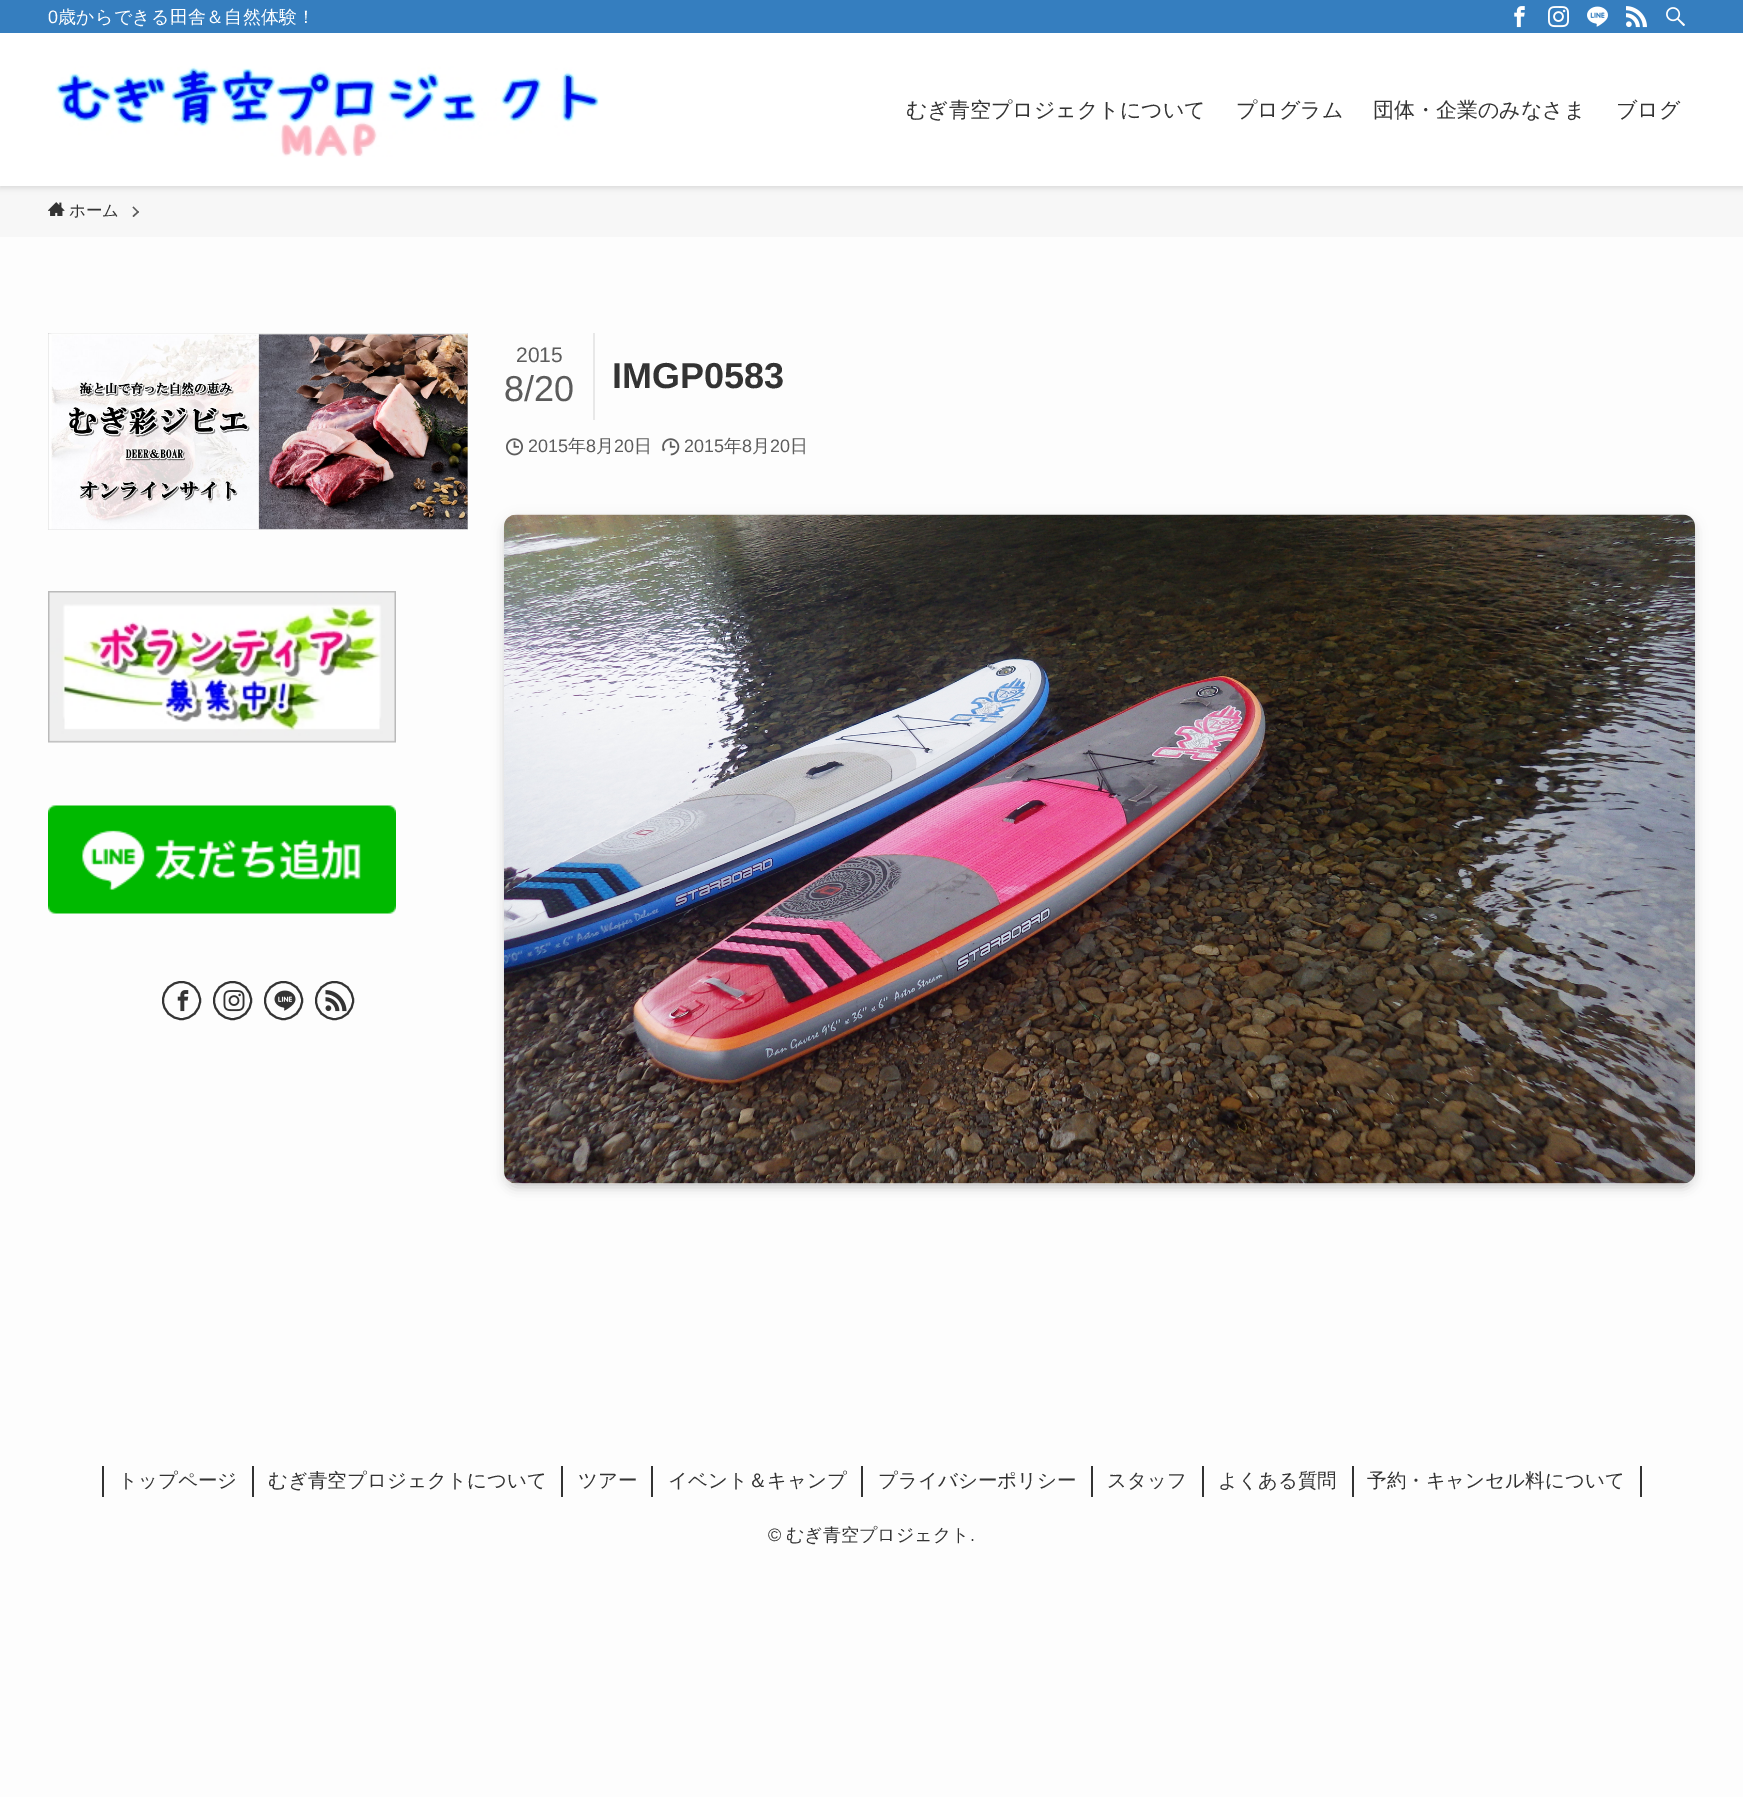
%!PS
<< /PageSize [1743 1797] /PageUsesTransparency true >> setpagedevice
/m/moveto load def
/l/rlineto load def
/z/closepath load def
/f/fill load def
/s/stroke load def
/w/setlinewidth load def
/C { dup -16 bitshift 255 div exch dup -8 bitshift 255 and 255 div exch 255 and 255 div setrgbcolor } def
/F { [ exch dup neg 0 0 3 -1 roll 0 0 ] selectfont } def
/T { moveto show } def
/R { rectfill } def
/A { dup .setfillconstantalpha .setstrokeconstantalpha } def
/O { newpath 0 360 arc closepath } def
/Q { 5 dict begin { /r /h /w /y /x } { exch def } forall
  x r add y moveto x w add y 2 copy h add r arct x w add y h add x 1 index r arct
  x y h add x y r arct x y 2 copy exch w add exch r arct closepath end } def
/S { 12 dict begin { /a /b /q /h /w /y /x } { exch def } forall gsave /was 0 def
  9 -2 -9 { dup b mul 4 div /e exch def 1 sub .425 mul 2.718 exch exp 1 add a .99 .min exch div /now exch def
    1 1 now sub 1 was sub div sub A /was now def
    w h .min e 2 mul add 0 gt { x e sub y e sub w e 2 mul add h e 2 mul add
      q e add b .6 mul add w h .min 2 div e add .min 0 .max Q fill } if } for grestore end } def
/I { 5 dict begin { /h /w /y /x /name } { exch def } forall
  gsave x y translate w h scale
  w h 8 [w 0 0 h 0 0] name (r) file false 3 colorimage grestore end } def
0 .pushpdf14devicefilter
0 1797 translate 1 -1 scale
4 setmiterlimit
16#FDFDFD C
0 0 1743 1797 R
16#F7F7F7 C
0 186 1743 51 R
16#000000 C
0 2 1743 186 0 3 .12 S
16#FFFFFF C
0 33 1743 153 R
16#357EBF C
0 0 1743 33 R
/LiberationSans-Regular 18 F
16#FFFFFF C
48 23 m .25 0 (0) ashow
/WenQuanYiZenHei-Medium 18 F
58 23 m .25 0 (歳からできる田舎＆自然体験！) ashow
(1.rgb) 1514 6 11 22 I
(2.rgb) 1548 6 21 22 I
(3.rgb) 1587 6 21 21 I
(4.rgb) 1626 6 21 22 I
(5.rgb) 1666 7 19 19 I
(6.rgb) 55 66 544 91 I
/WenQuanYiZenHei-Medium 21 F
16#333333 C
(むぎ青空プロジェクトについて) 906 117 T
(プログラム) 1236 117 T
(団体・企業のみなさま) 1373 117 T
(ブログ) 1616 117 T
(7.rgb) 48 202 17 14 I
/WenQuanYiZenHei-Medium 16.5 F
(ホーム) 69 216 T
16#5A5A5A C
133.5 206.5 m 5.5 5.5 l -1 1 l -5.5 -5.5 l z f
138 211 m 1 1 l -5.5 5 l -1 -1 l z f
(8.rgb) 48 333 420 197 I
(9.rgb) 48 591 348 152 I
(10.rgb) 48 805 348 109 I
16#333333 C
2 w
181.5 1000.5 18.5 O s
(11.rgb) 177 990 12 22 I
232.5 1000.5 18.5 O s
(12.rgb) 223 990 22 22 I
283.5 1000.5 18.5 O s
(13.rgb) 274 990 22 21 I
334.5 1000.5 18.5 O s
(14.rgb) 325 990 22 22 I
16#E8E8E8 C
593 333 2 87 R
/LiberationSans-Regular 21 F
16#5B5B5B C
(2015) 516 362 T
/LiberationSans-Regular 36 F
(8/20) 504 401 T
/LiberationSans-Bold 36 F
16#333333 C
(IMGP0583) 612 388 T
(15.rgb) 506 438 17 18 I
/LiberationSans-Regular 18 F
16#5B5B5B C
(2015) 528 452 T
/WenQuanYiZenHei-Medium 18 F
(年) 568 452 T
/LiberationSans-Regular 18 F
(8) 586 452 T
/WenQuanYiZenHei-Medium 18 F
(月) 596 452 T
/LiberationSans-Regular 18 F
(20) 614 452 T
/WenQuanYiZenHei-Medium 18 F
(日) 634 452 T
(16.rgb) 661 438 19 18 I
/LiberationSans-Regular 18 F
(2015) 684 452 T
/WenQuanYiZenHei-Medium 18 F
(年) 724 452 T
/LiberationSans-Regular 18 F
(8) 742 452 T
/WenQuanYiZenHei-Medium 18 F
(月) 752 452 T
/LiberationSans-Regular 18 F
(20) 770 452 T
/WenQuanYiZenHei-Medium 18 F
(日) 790 452 T
16#000000 C
510 527 1179 657 6 6 .2 S
504 518 1191 669 12 6 .1 S
(17.rgb) 504 514 1191 670 I
16#333333 C
252 1466 2 31 R
102 1466 2 31 R
/WenQuanYiZenHei-Medium 19.5 F
(トップページ) 118 1487 T
561 1466 2 31 R
(むぎ青空プロジェクトについて) 268 1487 T
651 1466 2 31 R
(ツアー) 578 1487 T
861 1466 2 31 R
(イベント＆キャンプ) 668 1487 T
1091 1466 2 31 R
(プライバシーポリシー) 878 1487 T
1202 1466 2 31 R
(スタッフ) 1107 1487 T
1352 1466 2 31 R
(よくある質問) 1218 1487 T
1640 1466 2 31 R
(予約・キャンセル料について) 1367 1487 T
/LiberationSans-Regular 18 F
(©) 768 1541 T
/WenQuanYiZenHei-Medium 18 F
(むぎ青空プロジェクト) 786 1541 T
/LiberationSans-Regular 18 F
(.) 970 1541 T
.poppdf14devicefilter showpage
